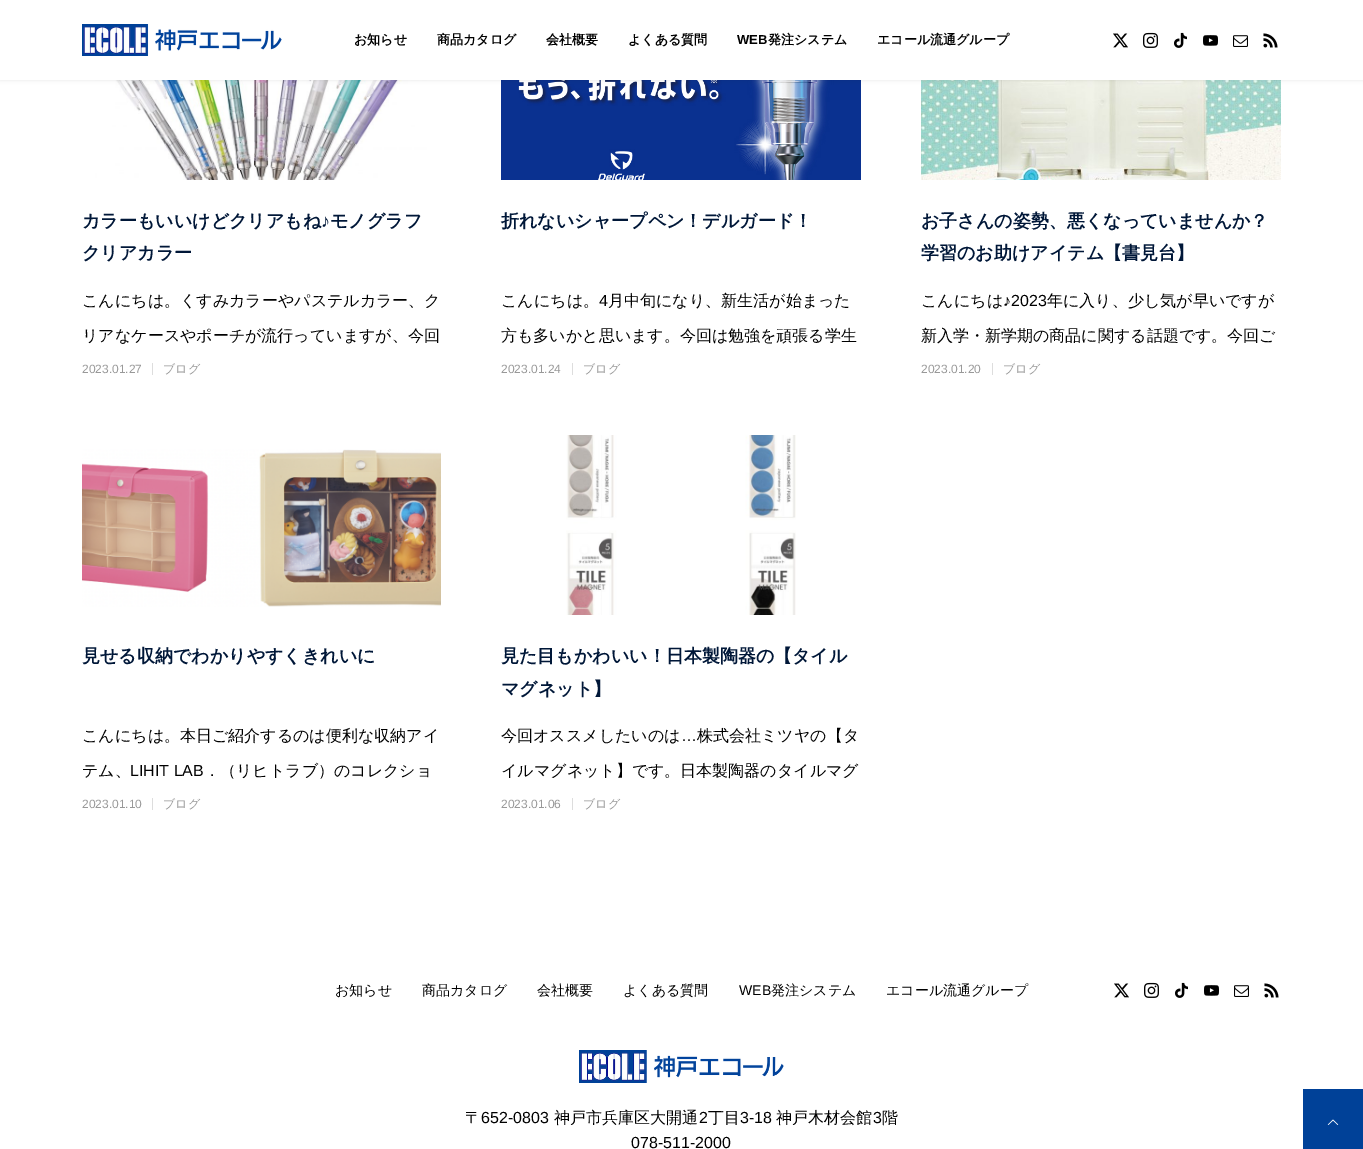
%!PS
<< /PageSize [1363 1149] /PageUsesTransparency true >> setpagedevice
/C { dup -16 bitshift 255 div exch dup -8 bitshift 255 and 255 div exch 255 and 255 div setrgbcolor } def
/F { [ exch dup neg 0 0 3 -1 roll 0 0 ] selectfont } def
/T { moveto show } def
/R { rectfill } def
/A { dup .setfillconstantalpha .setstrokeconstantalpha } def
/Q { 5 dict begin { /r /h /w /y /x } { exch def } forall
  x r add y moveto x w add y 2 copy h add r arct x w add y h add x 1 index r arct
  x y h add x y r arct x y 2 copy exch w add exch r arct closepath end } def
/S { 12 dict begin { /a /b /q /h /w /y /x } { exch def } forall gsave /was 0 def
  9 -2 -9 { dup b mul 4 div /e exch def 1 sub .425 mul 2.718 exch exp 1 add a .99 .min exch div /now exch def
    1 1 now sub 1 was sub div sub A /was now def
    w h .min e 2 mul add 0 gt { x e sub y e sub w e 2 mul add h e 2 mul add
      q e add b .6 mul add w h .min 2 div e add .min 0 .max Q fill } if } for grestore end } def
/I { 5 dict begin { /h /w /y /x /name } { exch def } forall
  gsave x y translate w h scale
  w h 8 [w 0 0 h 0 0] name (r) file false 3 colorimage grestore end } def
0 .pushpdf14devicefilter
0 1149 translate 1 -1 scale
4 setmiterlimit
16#FFFFFF C
0 0 1363 1149 R
(8.rgb) 95 80 332 100 I
(9.rgb) 501 80 360 100 I
(10.rgb) 921 80 360 100 I
16#000000 C
0 0 1363 80 0 2 .1 S
16#FFFFFF C
0 0 1363 80 R
(1.rgb) 82 24 200 32 I
/WenQuanYiZenHei-Bold 13 F
16#000000 C
(お知らせ) 354 44 T
(商品カタログ) 437 44 T
(会社概要) 546 44 T
(よくある質問) 628 44 T
/LiberationSans-Bold 13 F
(WEB) 737 44 T
/WenQuanYiZenHei-Bold 13 F
(発注システム) 768 44 T
(エコール流通グループ) 877 44 T
(2.rgb) 1113 33 15 15 I
(3.rgb) 1143 32 15 16 I
(4.rgb) 1174 32 13 16 I
(5.rgb) 1203 35 15 11 I
(6.rgb) 1233 35 15 12 I
(7.rgb) 1263 33 15 15 I
/WenQuanYiZenHei-Bold 18 F
16#001738 C
(カラーもいいけどクリアもね) 82 227 T
/LiberationSans-Bold 18 F
(♪) 321 227 T
/WenQuanYiZenHei-Bold 18 F
(モノグラフ) 330 227 T
(クリアカラー) 82 259 T
/WenQuanYiZenHei-Medium 16 F
16#000000 C
(こんにちは。くすみカラーやパステルカラー、ク) 82 306 T
(リアなケースやポーチが流行っていますが、今回) 82 341 T
16#DDDDDD C
152 363 1 12 R
/LiberationSans-Regular 12 F
16#999999 C
(2023.01.27) 82 373 T
/WenQuanYiZenHei-Medium 12 F
(ブログ) 163 373 T
/WenQuanYiZenHei-Bold 18 F
16#001738 C
(折れないシャープペン！デルガード！) 501 227 T
/WenQuanYiZenHei-Medium 16 F
16#000000 C
(こんにちは。) 501 306 T
/LiberationSans-Regular 16 F
(4) 599 306 T
/WenQuanYiZenHei-Medium 16 F
(月中旬になり、新生活が始まった) 608 306 T
(方も多いかと思います。今回は勉強を頑張る学生) 501 341 T
16#DDDDDD C
572 363 1 12 R
/LiberationSans-Regular 12 F
16#999999 C
(2023.01.24) 501 373 T
/WenQuanYiZenHei-Medium 12 F
(ブログ) 583 373 T
/WenQuanYiZenHei-Bold 18 F
16#001738 C
(お子さんの姿勢、悪くなっていませんか？) 921 227 T
(学習のお助けアイテム【書見台】) 921 259 T
/WenQuanYiZenHei-Medium 16 F
16#000000 C
(こんにちは) 921 306 T
/LiberationSans-Regular 16 F
(♪2023) 1003 306 T
/WenQuanYiZenHei-Medium 16 F
(年に入り、少し気が早いですが) 1047 306 T
(新入学・新学期の商品に関する話題です。今回ご) 921 341 T
16#DDDDDD C
992 363 1 12 R
/LiberationSans-Regular 12 F
16#999999 C
(2023.01.20) 921 373 T
/WenQuanYiZenHei-Medium 12 F
(ブログ) 1003 373 T
(11.rgb) 82 449 359 158 I
/WenQuanYiZenHei-Bold 18 F
16#001738 C
(見せる収納でわかりやすくきれいに) 82 662 T
/WenQuanYiZenHei-Medium 16 F
16#000000 C
(こんにちは。本日ご紹介するのは便利な収納アイ) 82 741 T
(テム、) 82 776 T
/LiberationSans-Regular 16 F
(LIHIT LAB) 130 776 T
/WenQuanYiZenHei-Medium 16 F
(．（リヒトラブ）のコレクショ) 204 776 T
16#DDDDDD C
152 798 1 12 R
/LiberationSans-Regular 12 F
16#999999 C
(2023.01.10) 82 808 T
/WenQuanYiZenHei-Medium 12 F
(ブログ) 163 808 T
(12.rgb) 566 435 230 180 I
/WenQuanYiZenHei-Bold 18 F
16#001738 C
(見た目もかわいい！日本製陶器の【タイル) 501 662 T
(マグネット】) 501 695 T
/WenQuanYiZenHei-Medium 16 F
16#000000 C
(今回オススメしたいのは) 501 741 T
/LiberationSans-Regular 16 F
(…) 681 741 T
/WenQuanYiZenHei-Medium 16 F
(株式会社ミツヤの【タ) 697 741 T
(イルマグネット】です。日本製陶器のタイルマグ) 501 776 T
16#DDDDDD C
572 798 1 12 R
/LiberationSans-Regular 12 F
16#999999 C
(2023.01.06) 501 808 T
/WenQuanYiZenHei-Medium 12 F
(ブログ) 583 808 T
/WenQuanYiZenHei-Medium 14 F
16#000000 C
(お知らせ) 335 995 T
(商品カタログ) 422 995 T
(会社概要) 537 995 T
(よくある質問) 623 995 T
/LiberationSans-Regular 14 F
(WEB) 739 995 T
/WenQuanYiZenHei-Medium 14 F
(発注システム) 771 995 T
(エコール流通グループ) 886 995 T
(2.rgb) 1114 983 15 15 I
(3.rgb) 1144 982 15 16 I
(4.rgb) 1175 982 13 16 I
(5.rgb) 1204 985 15 11 I
(6.rgb) 1234 985 15 12 I
(7.rgb) 1264 983 15 15 I
(13.rgb) 579 1050 205 33 I
/WenQuanYiZenHei-Medium 16 F
(〒) 465 1123 T
/LiberationSans-Regular 16 F
(652-0803) 481 1123 T
/WenQuanYiZenHei-Medium 16 F
(神戸市兵庫区大開通) 554 1123 T
/LiberationSans-Regular 16 F
(2) 699 1123 T
/WenQuanYiZenHei-Medium 16 F
(丁目) 708 1123 T
/LiberationSans-Regular 16 F
(3-18) 740 1123 T
/WenQuanYiZenHei-Medium 16 F
(神戸木材会館) 776 1123 T
/LiberationSans-Regular 16 F
(3) 873 1123 T
/WenQuanYiZenHei-Medium 16 F
(階) 882 1123 T
/LiberationSans-Regular 16 F
(078-511-2000) 631 1148 T
16#004198 C
1303 1089 60 60 R
(14.rgb) 1327 1119 12 6 I
.poppdf14devicefilter showpage
